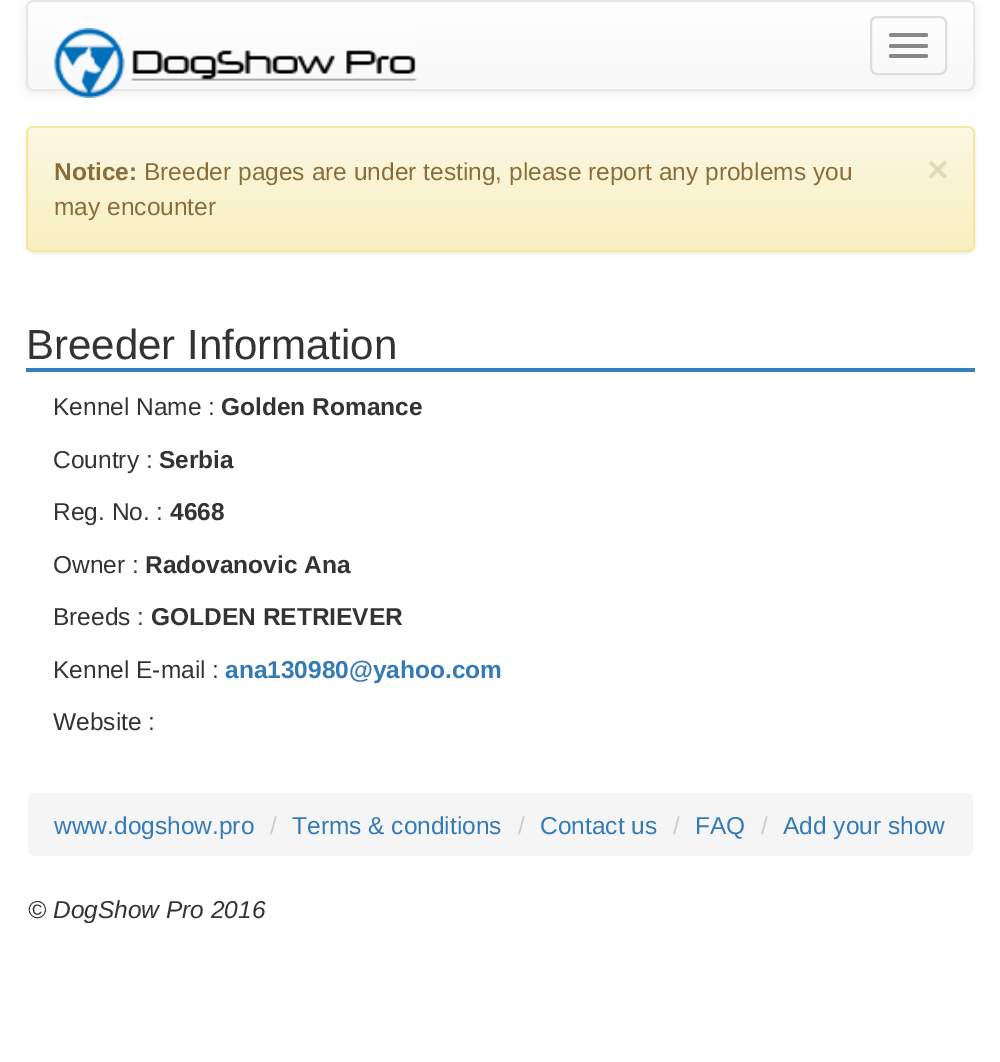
%!PS
<< /PageSize [1000 1062] /PageUsesTransparency true >> setpagedevice
/m/moveto load def
/l/rlineto load def
/c/rcurveto load def
/z/closepath load def
/f/fill load def
/s/stroke load def
/q/gsave load def
/Q_/grestore load def
/w/setlinewidth load def
/C { dup -16 bitshift 255 div exch dup -8 bitshift 255 and 255 div exch 255 and 255 div setrgbcolor } def
/F { [ exch dup neg 0 0 3 -1 roll 0 0 ] selectfont } def
/T { moveto show } def
/R { rectfill } def
/A { dup .setfillconstantalpha .setstrokeconstantalpha } def
/Q { 5 dict begin { /r /h /w /y /x } { exch def } forall
  x r add y moveto x w add y 2 copy h add r arct x w add y h add x 1 index r arct
  x y h add x y r arct x y 2 copy exch w add exch r arct closepath end } def
/S { 12 dict begin { /a /b /q /h /w /y /x } { exch def } forall gsave /was 0 def
  9 -2 -9 { dup b mul 4 div /e exch def 1 sub .425 mul 2.718 exch exp 1 add a .99 .min exch div /now exch def
    1 1 now sub 1 was sub div sub A /was now def
    w h .min e 2 mul add 0 gt { x e sub y e sub w e 2 mul add h e 2 mul add
      q e add b .6 mul add w h .min 2 div e add .min 0 .max Q fill } if } for grestore end } def
/I { 5 dict begin { /h /w /y /x /name } { exch def } forall
  gsave x y translate w h scale
  w h 8 [w 0 0 h 0 0] name (r) file false 3 colorimage grestore end } def
0 .pushpdf14devicefilter
0 1062 translate 1 -1 scale
4 setmiterlimit
16#FFFFFF C
0 0 1000 1062 R
16#000000 C
26 2 949 91 7 4.5 .07 S
q
26 0 949 91 7 Q clip newpath
q 26 2 m 949 0 l 0 87 l -949 0 l z clip newpath
<< /ShadingType 2 /ColorSpace /DeviceRGB /Coords [501 1.7 501 89] /Extend [true true] /Function << /FunctionType 2 /Domain [0 1] /C0 [1 1 1] /C1 [.973 .973 .973] /N 1 >> >> shfill Q_
Q_
16#E7E7E7 C
2 w
27 1 947 89 6 Q s
(1.rgb) 54 28 363 70 I
16#DDDDDD C
871 17 75 57 6 Q s
16#888888 C
889 33 39 4 2 Q f
889 44 39 4 2 Q f
889 54 39 4 2 Q f
16#000000 C
26 128 949 126 7 2 .05 S
q
26 126 949 126 7 Q clip newpath
q 26 128 m 949 0 l 0 122 l -949 0 l z clip newpath
<< /ShadingType 2 /ColorSpace /DeviceRGB /Coords [501 128 501 250] /Extend [true true] /Function << /FunctionType 2 /Domain [0 1] /C0 [.988 .973 .89] /C1 [.973 .937 .753] /N 1 >> >> shfill Q_
Q_
16#FDFAEA C
33 130 m 935 0 l 3 0 5 2 5 5 c 0 -3 -1 -7 -5 -7 c -935 0 l -4 0 -5 4 -5 7 c 0 -3 2 -5 5 -5 c z f
16#F5E79E C
27 127 947 124 6 Q s
/LiberationSans-Bold 24.5 F
16#8A6D3B C
(Notice:) 54 180 T
/LiberationSans-Regular 24.5 F
(Breeder pages are under testing, please report any problems you) 144 180 T
/LiberationSans-Bold 37 F
16#E4DAB8 C
(×) 927 182 T
/LiberationSans-Regular 24.5 F
16#8A6D3B C
(may encounter) 54 215 T
16#357EBD C
26 368 949 4 R
/LiberationSans-Regular 42 F
16#333333 C
(Breeder Information) 26 359 T
/LiberationSans-Regular 24.5 F
(Kennel Name :) 53 415 T
/LiberationSans-Bold 24.5 F
(Golden Romance) 221 415 T
/LiberationSans-Regular 24.5 F
(Country :) 53 468 T
/LiberationSans-Bold 24.5 F
(Serbia) 159 468 T
/LiberationSans-Regular 24.5 F
(Reg. No. :) 53 520 T
/LiberationSans-Bold 24.5 F
(4668) 170 520 T
/LiberationSans-Regular 24.5 F
(Owner :) 53 573 T
/LiberationSans-Bold 24.5 F
(Radovanovic Ana) 145 573 T
/LiberationSans-Regular 24.5 F
(Breeds :) 53 625 T
/LiberationSans-Bold 24.5 F
(GOLDEN RETRIEVER) 151 625 T
/LiberationSans-Regular 24.5 F
(Kennel E-mail :) 53 678 T
/LiberationSans-Bold 24.5 F
16#337AB7 C
(ana130980@yahoo.com) 225 678 T
/LiberationSans-Regular 24.5 F
16#333333 C
(Website :) 53 730 T
16#F5F5F5 C
28 793 945 63 7 Q f
16#337AB7 C
(www.dogshow.pro) 54 834 T
16#CCCCCC C
(/) 270 834 T
16#337AB7 C
(Terms & conditions) 292 834 T
16#CCCCCC C
(/) 518 834 T
16#337AB7 C
(Contact us) 540 834 T
16#CCCCCC C
(/) 673 834 T
16#337AB7 C
(FAQ) 695 834 T
16#CCCCCC C
(/) 761 834 T
16#337AB7 C
(Add your show) 783 834 T
/LiberationSans-Italic 24.5 F
16#333333 C
(© DogShow Pro 2016) 28 918 T
.poppdf14devicefilter showpage
